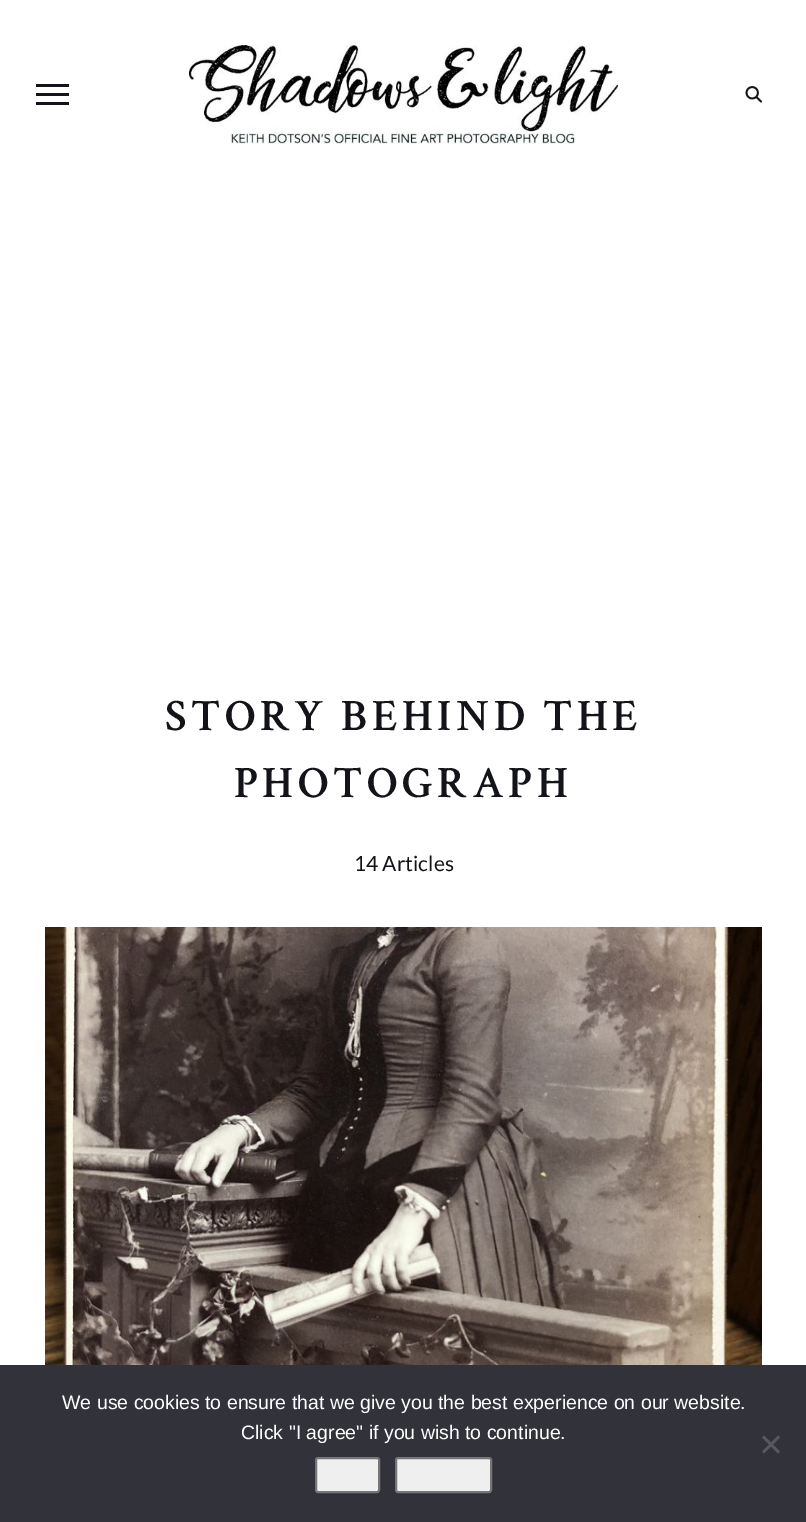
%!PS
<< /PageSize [806 1522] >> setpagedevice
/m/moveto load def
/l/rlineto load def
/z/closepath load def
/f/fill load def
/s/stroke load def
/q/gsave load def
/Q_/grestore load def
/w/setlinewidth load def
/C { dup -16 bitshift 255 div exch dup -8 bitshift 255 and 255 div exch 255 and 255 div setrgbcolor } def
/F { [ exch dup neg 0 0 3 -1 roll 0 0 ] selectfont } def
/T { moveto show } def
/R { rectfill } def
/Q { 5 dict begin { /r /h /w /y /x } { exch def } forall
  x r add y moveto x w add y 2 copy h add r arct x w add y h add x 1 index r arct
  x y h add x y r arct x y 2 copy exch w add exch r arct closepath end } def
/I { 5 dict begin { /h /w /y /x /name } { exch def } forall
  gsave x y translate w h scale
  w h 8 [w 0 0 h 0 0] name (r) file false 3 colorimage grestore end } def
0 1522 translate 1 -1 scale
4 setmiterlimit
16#FFFFFF C
0 0 806 1522 R
16#131419 C
36 84 33 3 R
36 102 33 3 R
36 93 33 3 R
(1.rgb) 189 45 429 99 I
(2.rgb) 745 86 17 17 I
/CrimsonText-SemiBold 45 F
165 730 m 4.5 0 (STORY BEHIND THE) ashow
234 797 m 4.5 0 (PHOTOGRAPH) ashow
/Lato-Regular 21 F
(14 Articles) 354 871 T
(3.rgb) 45 927 717 438 I
16#32323A C
0 1365 806 157 R
/LiberationSans-Regular 19.5 F
16#FFFFFF C
(We use cookies to ensure that we give you the best experience on our website.) 62 1409 T
(Click "I agree" if you wish to continue.) 241 1439 T
16#59595D C
778 1435.5 m 2 2 l -16 16 l -2 -2 l z f
762 1437.5 m 2 -2 l 16 16 l -2 2 l z f
16#EFEFEF C
316 1458 63 34 2 Q q f Q_
16#767676 C
2 w
s
16#EFEFEF C
396 1458 95 34 2 Q q f Q_
16#767676 C
s
showpage
